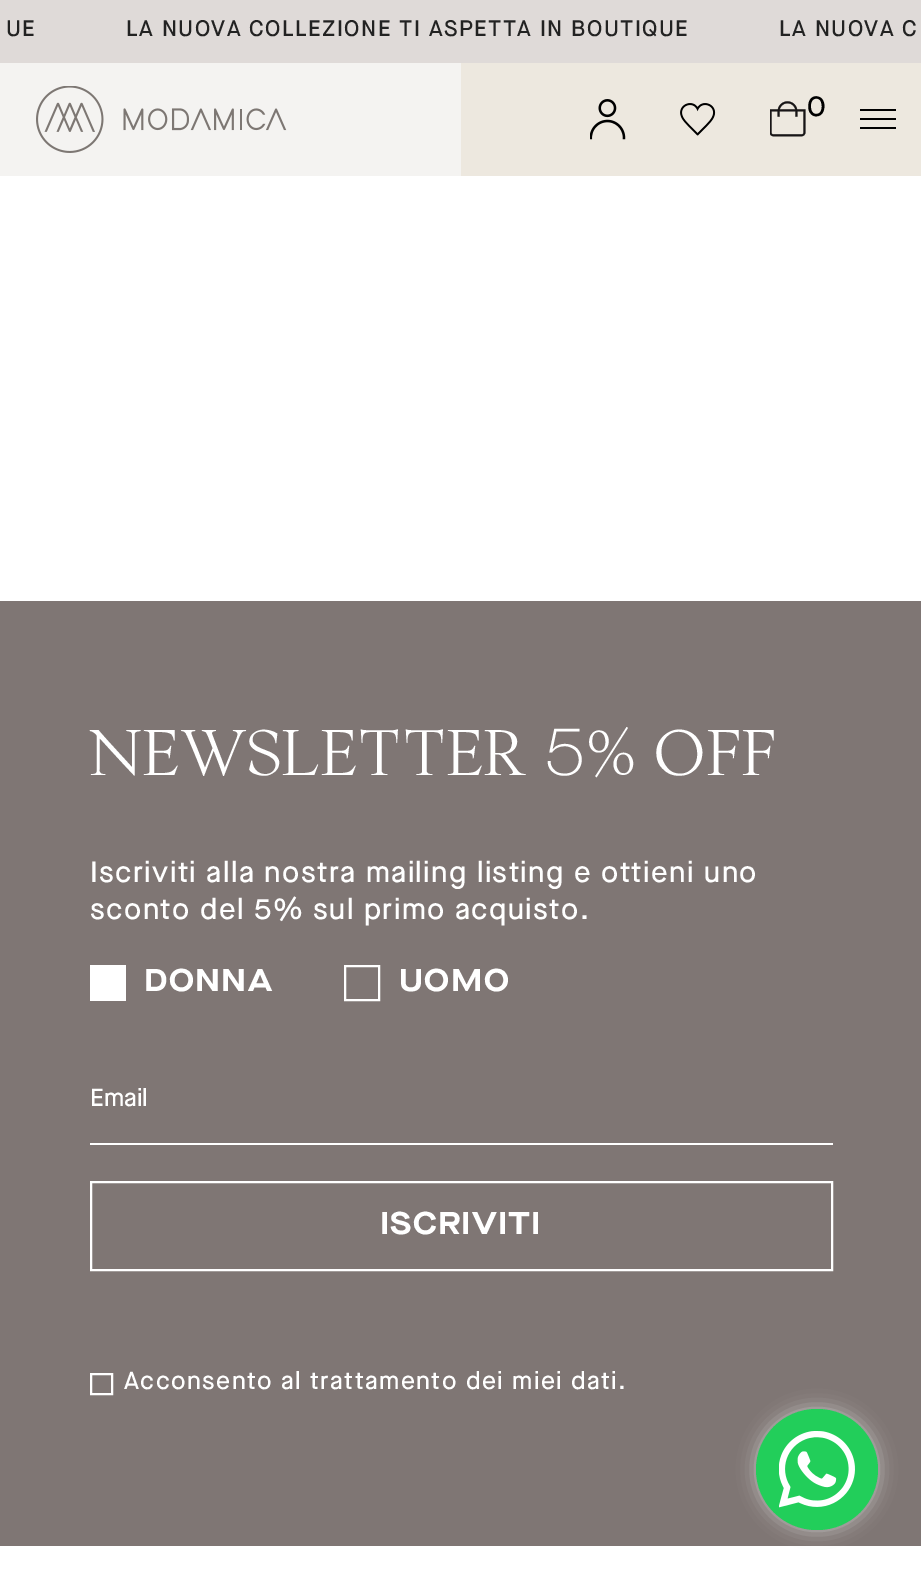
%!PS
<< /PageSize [921 1573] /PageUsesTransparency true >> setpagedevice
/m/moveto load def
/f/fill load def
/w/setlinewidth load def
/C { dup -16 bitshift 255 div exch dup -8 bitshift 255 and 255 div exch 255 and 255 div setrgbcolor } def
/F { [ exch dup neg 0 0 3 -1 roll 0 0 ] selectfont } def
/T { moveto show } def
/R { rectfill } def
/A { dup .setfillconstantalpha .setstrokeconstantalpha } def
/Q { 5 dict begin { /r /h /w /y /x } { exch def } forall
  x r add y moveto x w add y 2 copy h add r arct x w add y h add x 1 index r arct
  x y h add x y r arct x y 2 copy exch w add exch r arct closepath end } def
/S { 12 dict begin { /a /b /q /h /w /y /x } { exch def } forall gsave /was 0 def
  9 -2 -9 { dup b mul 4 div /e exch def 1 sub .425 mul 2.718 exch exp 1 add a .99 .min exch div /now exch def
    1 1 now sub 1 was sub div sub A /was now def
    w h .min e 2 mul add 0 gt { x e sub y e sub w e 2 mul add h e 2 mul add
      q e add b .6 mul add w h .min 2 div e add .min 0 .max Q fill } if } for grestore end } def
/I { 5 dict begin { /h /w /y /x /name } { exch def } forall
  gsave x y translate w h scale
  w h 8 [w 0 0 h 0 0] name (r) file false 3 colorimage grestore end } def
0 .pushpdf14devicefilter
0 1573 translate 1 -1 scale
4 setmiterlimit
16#FFFFFF C
0 0 921 1573 R
16#DFDAD8 C
0 0 921 63 R
/MaisonNeue-Medium 22.5 F
16#222222 C
6 36 m 1.45 0 (UE) ashow
126 36 m 1.45 0 (LA NUOVA COLLEZIONE TI ASPETTA IN BOUTIQUE) ashow
779 36 m 1.45 0 (LA NUOVA C) ashow
16#F4F3F1 C
0 63 461 113 R
(1.rgb) 36 86 251 67 I
16#EDE8DF C
461 63 460 113 R
(2.rgb) 590 99 36 41 I
(3.rgb) 680 103 36 33 I
(4.rgb) 770 101 36 36 I
/MaisonNeue-Medium 29 F
16#000000 C
(0) 807 116 T
860 109 36 2 R
860 118 36 2 R
860 127 36 2 R
16#7F7674 C
0 601 921 945 R
/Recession-Regular 67.5 F
16#FFFFFF C
90 775 m 1.45 0 (NEWSLETTER 5% OFF) ashow
/MaisonNeue-Medium 29.25 F
90 882 m 1.45 0 (Iscriviti alla nostra mailing listing e ottieni uno) ashow
90 919 m 1.45 0 (sconto del 5% sul primo acquisto.) ashow
90 965 36 36 R
/MaisonNeue-Bold 31.5 F
144 991 m 1.45 0 (DONNA) ashow
2 w
345 966 34 34 rectstroke
399 991 m 1.45 0 (UOMO) ashow
90 1143 743 2 R
/MaisonNeue-Medium 24.75 F
(Email) 90 1106 T
91 1182 741 88 rectstroke
/MaisonNeue-Bold 31.5 F
380 1234 m 1.25 0 (ISCRIVITI) ashow
91 1374 21 20 rectstroke
/MaisonNeue-Medium 24.75 F
124 1389 m 1.45 0 (Acconsento al trattamento dei miei dati.) ashow
16#C2C2C2 C
756 1409 122 121 60.5 9 1 S
16#22CE5A C
756 1409 122 121 60.5 Q f
(5.rgb) 779 1431 76 77 I
.poppdf14devicefilter showpage
